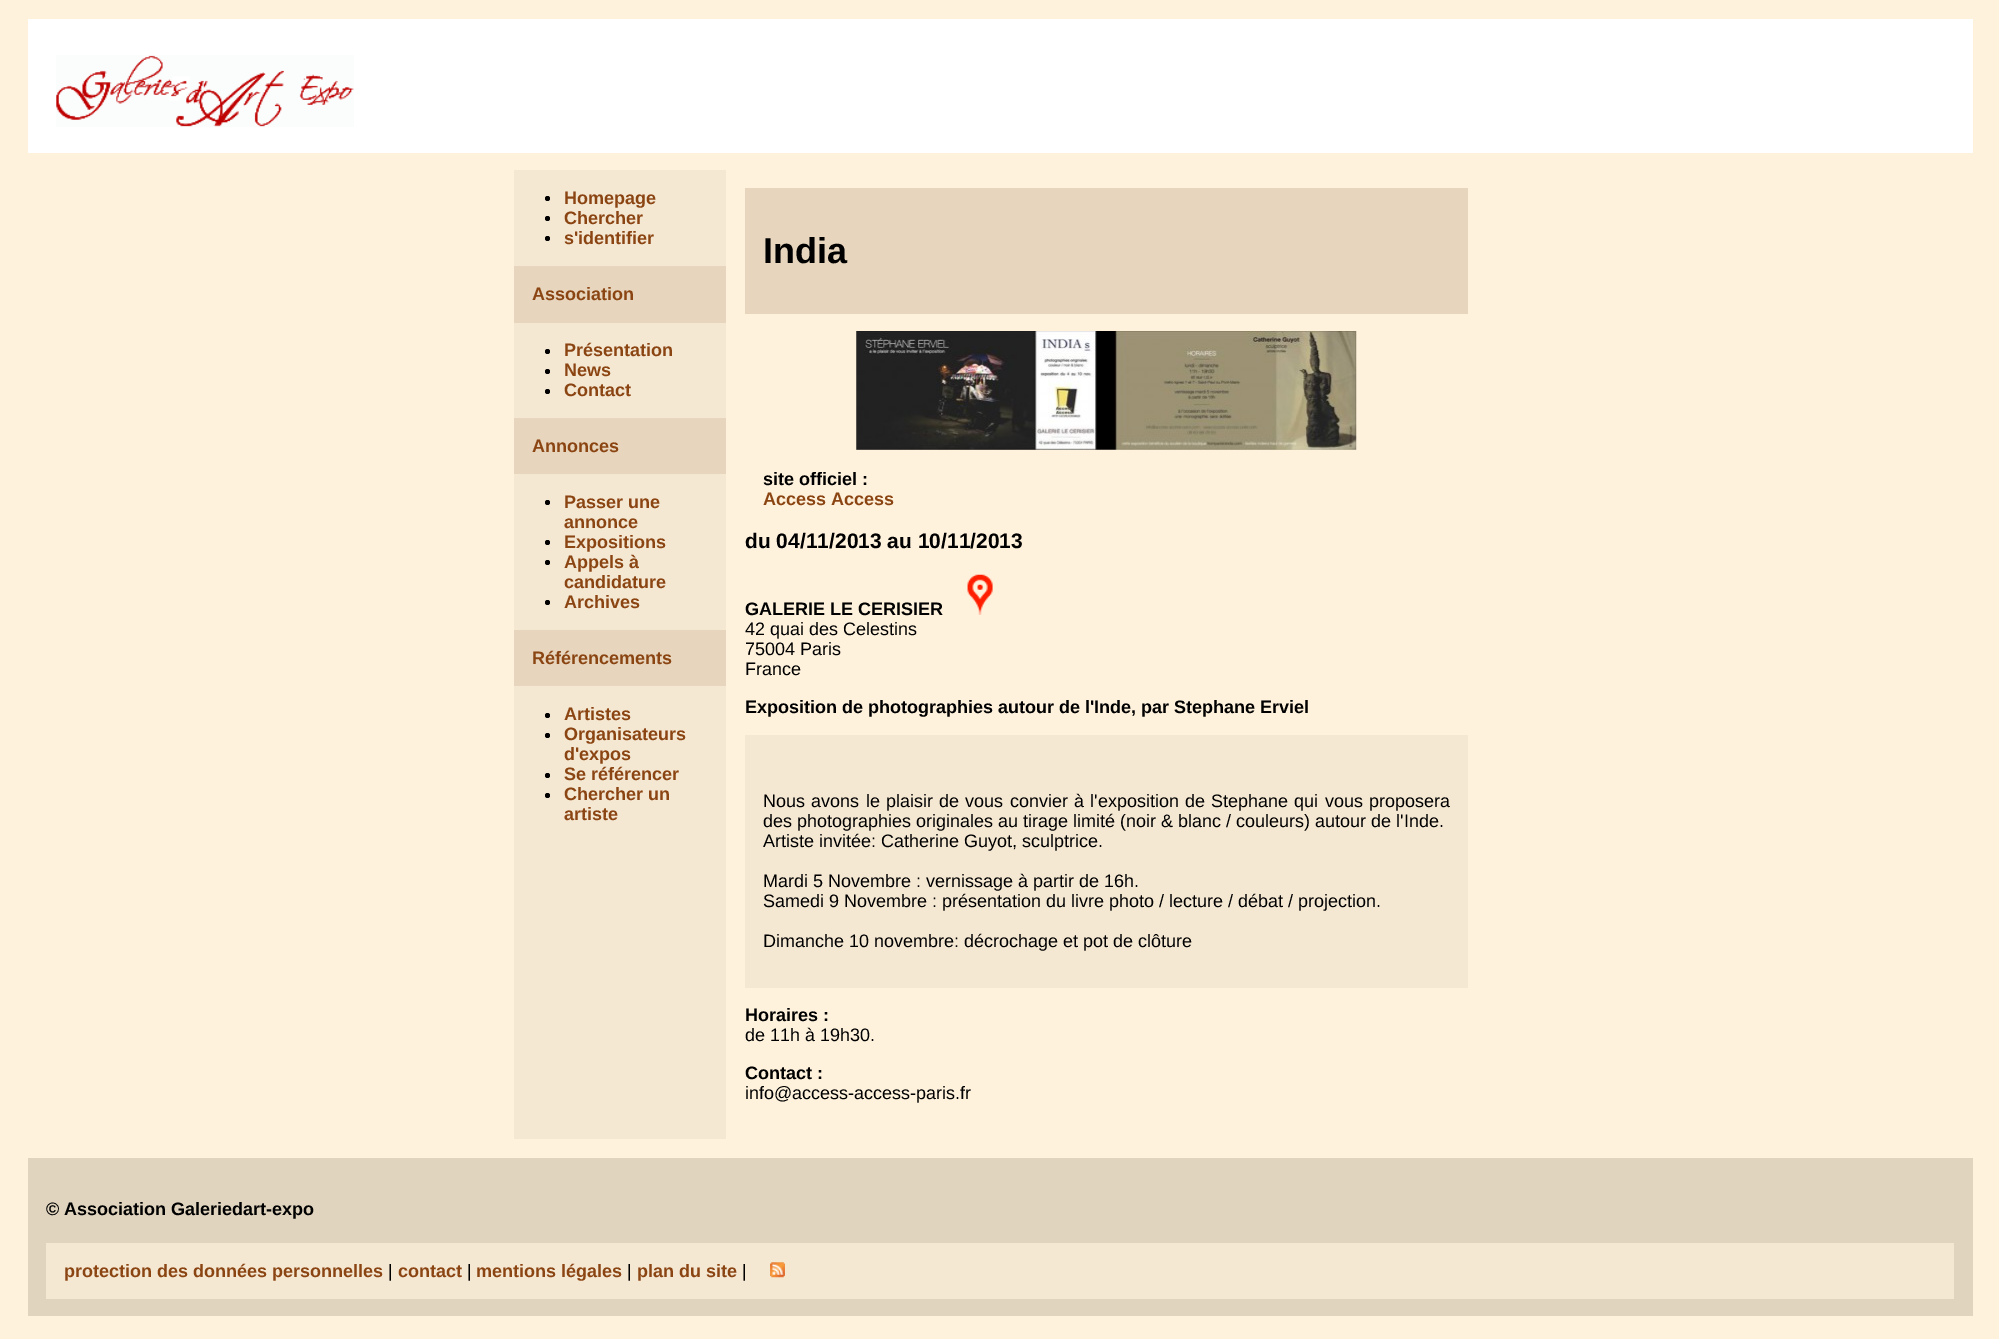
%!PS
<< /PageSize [1999 1339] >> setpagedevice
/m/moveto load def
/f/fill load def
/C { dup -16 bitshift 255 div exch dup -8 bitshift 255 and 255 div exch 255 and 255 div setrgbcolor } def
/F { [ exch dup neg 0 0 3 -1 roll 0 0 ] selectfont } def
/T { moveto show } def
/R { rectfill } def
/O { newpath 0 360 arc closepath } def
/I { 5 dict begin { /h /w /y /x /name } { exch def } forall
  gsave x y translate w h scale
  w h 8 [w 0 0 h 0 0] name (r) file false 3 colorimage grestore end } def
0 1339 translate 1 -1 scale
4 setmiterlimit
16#FFF2DD C
0 0 1999 1339 R
16#FFFFFF C
28 19 1945 134 R
(1.rgb) 56 55 298 72 I
16#F5E8D3 C
514 170 212 969 R
16#000000 C
547.5 198.5 2.5 O f
/LiberationSans-Bold 18 F
16#8B4513 C
(Homepage) 564 204 T
16#000000 C
547.5 218.5 2.5 O f
16#8B4513 C
(Chercher) 564 224 T
16#000000 C
547.5 238.5 2.5 O f
16#8B4513 C
(s'identifier) 564 244 T
16#E7D6BD C
514 266 212 57 R
16#8B4513 C
(Association) 532 300 T
16#000000 C
547.5 351.5 2.5 O f
16#8B4513 C
(Présentation) 564 356 T
16#000000 C
547.5 371.5 2.5 O f
16#8B4513 C
(News) 564 376 T
16#000000 C
547.5 391.5 2.5 O f
16#8B4513 C
(Contact) 564 396 T
16#E7D6BD C
514 418 212 56 R
16#8B4513 C
(Annonces) 532 452 T
16#000000 C
547.5 502.5 2.5 O f
16#8B4513 C
(Passer une) 564 508 T
(annonce) 564 528 T
16#000000 C
547.5 542.5 2.5 O f
16#8B4513 C
(Expositions) 564 548 T
16#000000 C
547.5 562.5 2.5 O f
16#8B4513 C
(Appels à) 564 568 T
(candidature) 564 588 T
16#000000 C
547.5 602.5 2.5 O f
16#8B4513 C
(Archives) 564 608 T
16#E7D6BD C
514 630 212 56 R
16#8B4513 C
(Référencements) 532 664 T
16#000000 C
547.5 715.5 2.5 O f
16#8B4513 C
(Artistes) 564 720 T
16#000000 C
547.5 735.5 2.5 O f
16#8B4513 C
(Organisateurs) 564 740 T
(d'expos) 564 760 T
16#000000 C
547.5 775.5 2.5 O f
16#8B4513 C
(Se référencer) 564 780 T
16#000000 C
547.5 795.5 2.5 O f
16#8B4513 C
(Chercher un) 564 800 T
(artiste) 564 820 T
16#E7D6BD C
745 188 723 126 R
/LiberationSans-Bold 36 F
16#000000 C
(India) 763 263 T
(2.rgb) 856 331 501 119 I
/LiberationSans-Bold 18 F
(site officiel :) 763 485 T
16#8B4513 C
(Access Access) 763 505 T
/LiberationSans-Bold 21 F
16#000000 C
(du 04/11/2013 au 10/11/2013) 745 548 T
/LiberationSans-Bold 18 F
(GALERIE LE CERISIER) 745 615 T
(3.rgb) 967 574 26 41 I
/LiberationSans-Regular 18 F
(42 quai des Celestins) 745 635 T
(75004 Paris) 745 655 T
(France) 745 675 T
/LiberationSans-Bold 18 F
(Exposition de photographies autour de l'Inde, par Stephane Erviel) 745 713 T
16#F5E8D3 C
745 735 723 253 R
/LiberationSans-Regular 18 F
16#000000 C
763 807 m 1.25 0 32 (Nous avons le plaisir de vous convier à l'exposition de Stephane qui vous proposera) widthshow
(des photographies originales au tirage limité \(noir & blanc / couleurs\) autour de l'Inde.) 763 827 T
(Artiste invitée: Catherine Guyot, sculptrice.) 763 847 T
(Mardi 5 Novembre : vernissage à partir de 16h.) 763 887 T
(Samedi 9 Novembre : présentation du livre photo / lecture / débat / projection.) 763 907 T
(Dimanche 10 novembre: décrochage et pot de clôture) 763 947 T
/LiberationSans-Bold 18 F
(Horaires :) 745 1021 T
/LiberationSans-Regular 18 F
(de 11h à 19h30.) 745 1041 T
/LiberationSans-Bold 18 F
(Contact :) 745 1079 T
/LiberationSans-Regular 18 F
(info@access-access-paris.fr) 745 1099 T
16#E1D4BF C
28 1158 1945 158 R
/LiberationSans-Bold 18 F
16#000000 C
(© Association Galeriedart-expo) 46 1215 T
16#F5E8D3 C
46 1243 1908 56 R
16#8B4513 C
(protection des données personnelles) 64 1277 T
/LiberationSans-Regular 18 F
16#000000 C
(|) 388 1277 T
/LiberationSans-Bold 18 F
16#8B4513 C
(contact) 398 1277 T
/LiberationSans-Regular 18 F
16#000000 C
(|) 467 1277 T
/LiberationSans-Bold 18 F
16#8B4513 C
(mentions légales) 476 1277 T
/LiberationSans-Regular 18 F
16#000000 C
(|) 627 1277 T
/LiberationSans-Bold 18 F
16#8B4513 C
(plan du site) 637 1277 T
/LiberationSans-Regular 18 F
16#000000 C
(|) 742 1277 T
(4.rgb) 770 1262 15 16 I
showpage
